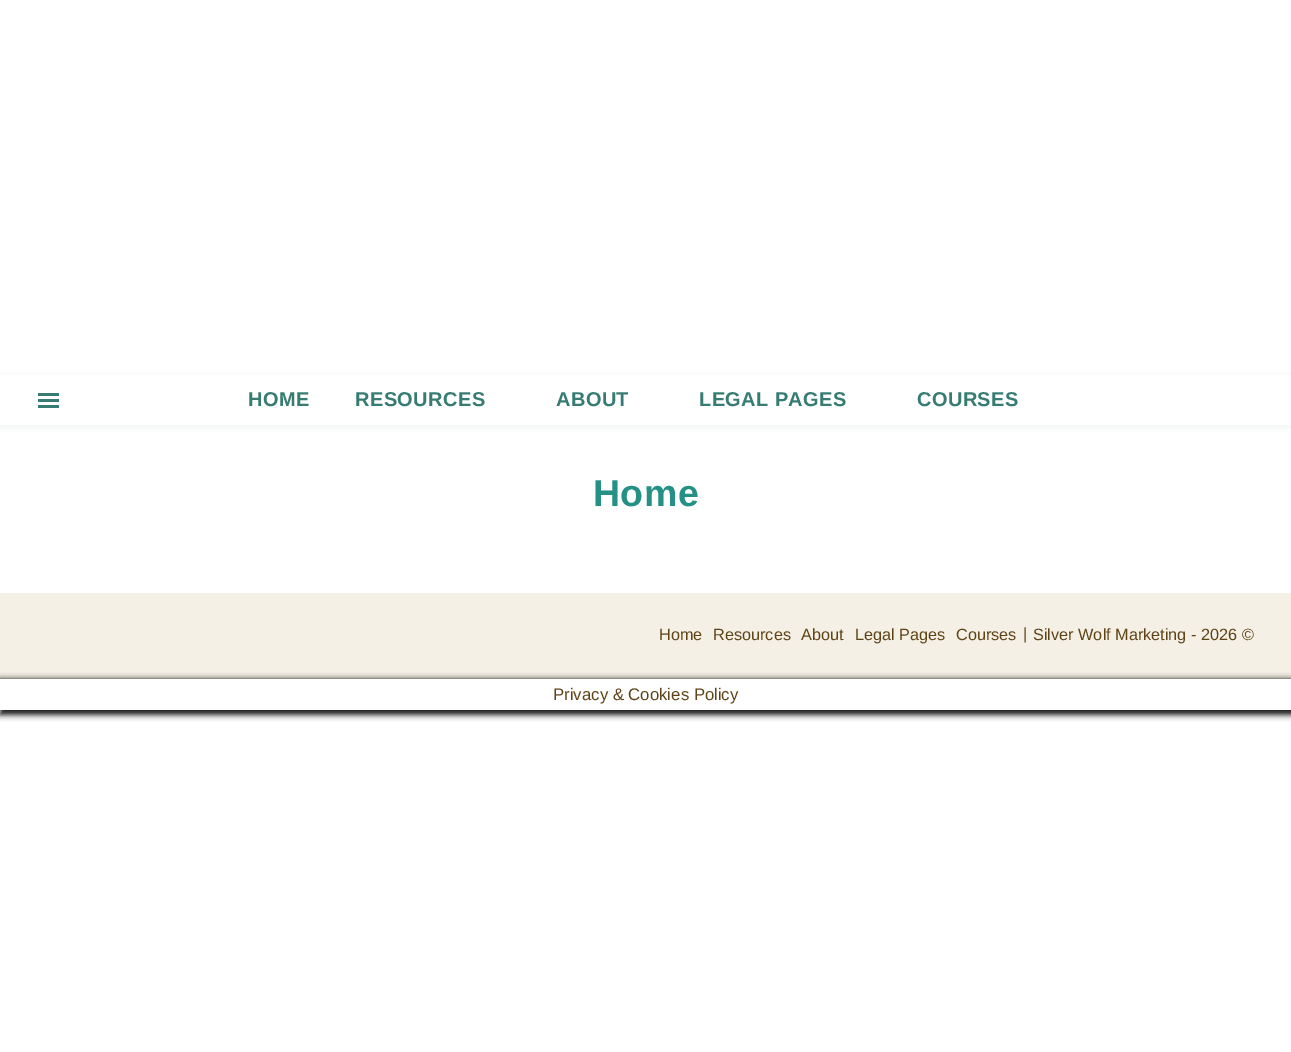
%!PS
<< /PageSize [1291 1052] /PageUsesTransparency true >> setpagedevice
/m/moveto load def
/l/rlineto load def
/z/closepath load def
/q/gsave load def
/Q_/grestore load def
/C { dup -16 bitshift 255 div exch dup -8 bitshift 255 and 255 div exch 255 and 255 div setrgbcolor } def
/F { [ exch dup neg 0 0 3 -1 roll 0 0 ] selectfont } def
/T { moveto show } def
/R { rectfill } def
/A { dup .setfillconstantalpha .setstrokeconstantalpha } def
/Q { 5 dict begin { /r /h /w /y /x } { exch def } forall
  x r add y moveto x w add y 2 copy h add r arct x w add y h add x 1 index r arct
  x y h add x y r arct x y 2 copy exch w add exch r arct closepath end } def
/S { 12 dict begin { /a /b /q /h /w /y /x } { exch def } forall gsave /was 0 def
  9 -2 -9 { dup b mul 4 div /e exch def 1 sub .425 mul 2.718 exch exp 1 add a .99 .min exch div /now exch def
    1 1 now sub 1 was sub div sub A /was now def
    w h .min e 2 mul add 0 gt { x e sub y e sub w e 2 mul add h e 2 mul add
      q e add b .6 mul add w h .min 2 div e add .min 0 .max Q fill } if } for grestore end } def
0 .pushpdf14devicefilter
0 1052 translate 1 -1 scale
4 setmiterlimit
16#FFFFFF C
0 0 1291 1052 R
q
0 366 m 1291 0 l 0 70 l -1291 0 l z 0 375 m 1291 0 l 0 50 l -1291 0 l z eoclip newpath
16#377C72 C
0 376 1291 50 0 3 .1 S
Q_
16#377C72 C
38 393 21 3 R
38 399 21 3 R
38 405 21 3 R
/LiberationSans-Bold 20 F
248 406 m .4 0 (HOME) ashow
355 406 m .4 0 (RESOURCES) ashow
556 406 m .4 0 (ABOUT) ashow
699 406 m .4 0 (LEGAL PAGES) ashow
917 406 m .4 0 (COURSES) ashow
/LiberationSans-Bold 37.5 F
16#259185 C
593 506 m .4 0 (Home) ashow
16#F5F0E6 C
0 593 1291 86 R
/LiberationSans-Regular 16.25 F
16#5E4316 C
(Home) 659 640 T
(Resources) 713 640 T
(About) 801 640 T
(Legal Pages) 855 640 T
(Courses) 956 640 T
(|) 1023 639 T
(Silver Wolf Marketing - 2026 ©) 1033 640 T
q
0 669 m 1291 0 l 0 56 l -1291 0 l z 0 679 m 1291 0 l 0 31 l -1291 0 l z eoclip newpath
16#161616 C
0 679 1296 36 0 3 1 S
Q_
/LiberationSans-Regular 16.75 F
(Privacy & Cookies Policy) 553 700 T
.poppdf14devicefilter showpage
